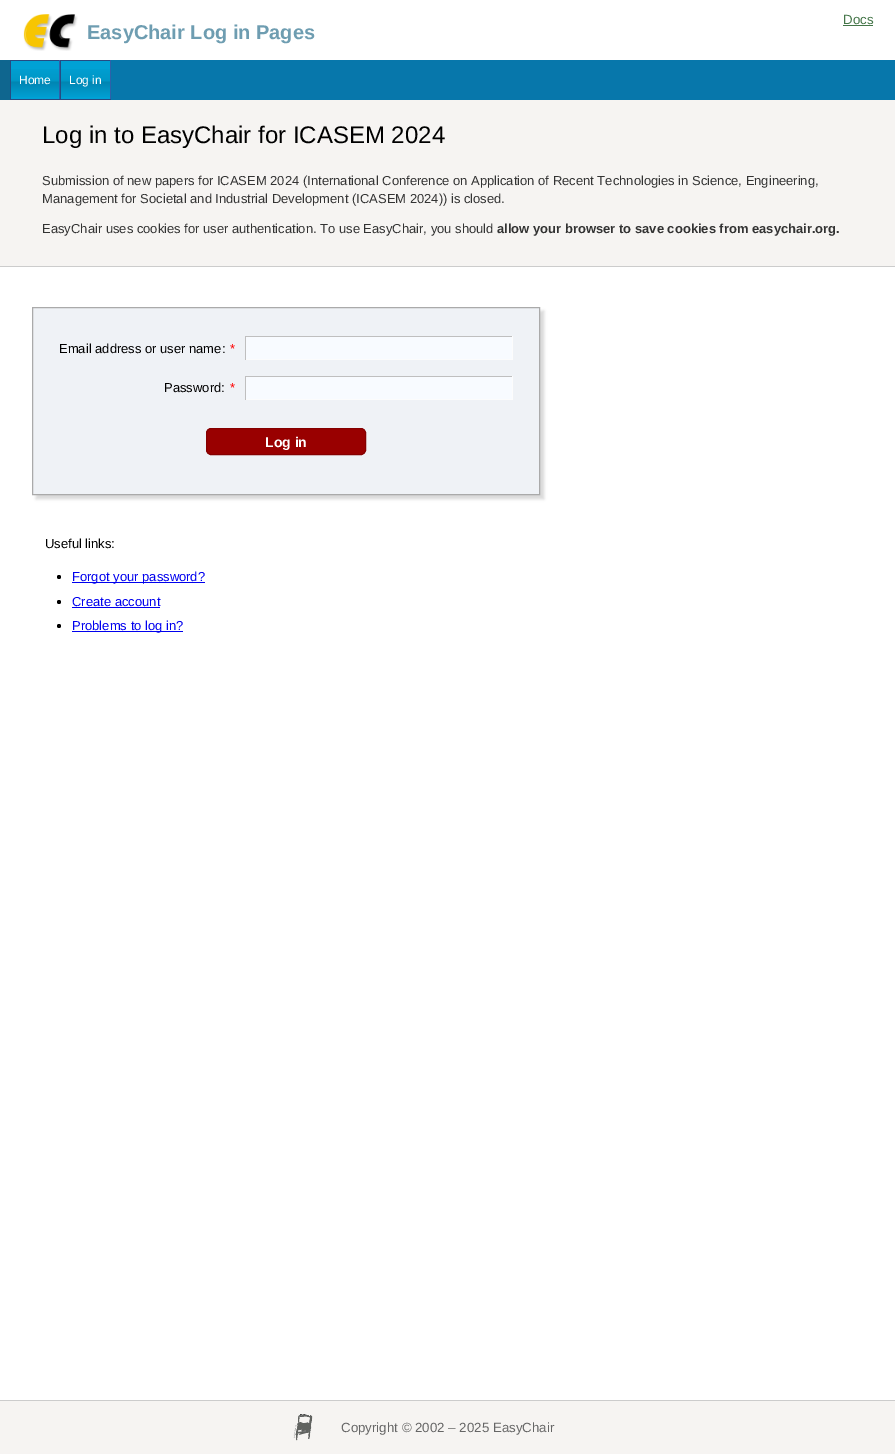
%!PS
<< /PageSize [895 1454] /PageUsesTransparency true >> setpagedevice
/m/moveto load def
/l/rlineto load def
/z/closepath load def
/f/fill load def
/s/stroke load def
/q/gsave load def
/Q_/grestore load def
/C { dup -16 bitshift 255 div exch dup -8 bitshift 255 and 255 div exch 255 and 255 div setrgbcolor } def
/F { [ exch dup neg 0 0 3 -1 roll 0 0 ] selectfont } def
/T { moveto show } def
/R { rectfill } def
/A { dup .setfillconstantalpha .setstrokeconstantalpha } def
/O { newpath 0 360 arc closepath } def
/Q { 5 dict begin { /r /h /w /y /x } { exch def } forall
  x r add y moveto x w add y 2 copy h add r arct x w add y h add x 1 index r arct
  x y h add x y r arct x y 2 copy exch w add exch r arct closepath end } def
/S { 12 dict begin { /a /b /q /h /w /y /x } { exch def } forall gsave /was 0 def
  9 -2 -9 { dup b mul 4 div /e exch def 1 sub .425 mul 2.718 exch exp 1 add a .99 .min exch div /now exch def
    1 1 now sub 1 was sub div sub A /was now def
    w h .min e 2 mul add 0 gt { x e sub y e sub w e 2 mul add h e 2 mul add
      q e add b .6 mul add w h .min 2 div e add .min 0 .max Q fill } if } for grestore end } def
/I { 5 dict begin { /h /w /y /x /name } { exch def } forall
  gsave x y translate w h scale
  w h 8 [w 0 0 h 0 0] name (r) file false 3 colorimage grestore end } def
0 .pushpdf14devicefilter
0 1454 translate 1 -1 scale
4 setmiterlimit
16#FFFFFF C
0 0 895 1454 R
(1.rgb) 23 14 55 37 I
/LiberationSans-Regular 13.3 F
16#447548 C
(Docs) 843 24 T
843 25 30 1 R
/LiberationSans-Bold 20 F
16#6E9DB1 C
(EasyChair Log in Pages) 87 39 T
16#0777AB C
111 60 784 40 R
16#0F668F C
0 60 10 40 R
16#00A1D5 C
11 61 48 38 R
(2.rgb) 11 69 48 28 I
16#254B82 C
10 60 101 1 R
16#2F60A9 C
59 60 1 40 R
16#254B82 C
10 99 50 1 R
10 60 1 40 R
/LiberationSans-Regular 12 F
16#FFFFFF C
(Home) 19 84 T
16#00A1D5 C
61 61 49 38 R
(3.rgb) 61 69 49 28 I
16#2F60A9 C
110 60 1 40 R
16#254B82 C
60 99 51 1 R
60 60 1 40 R
16#FFFFFF C
(Log in) 69 84 T
16#F6F4F2 C
0 100 895 166 R
16#CCCCCC C
0 266 895 1 R
/LiberationSans-Regular 24 F
16#000000 C
(Log in to EasyChair for ICASEM 2024) 42 143 T
/LiberationSans-Regular 13 F
16#333333 C
(Submission of new papers for ICASEM 2024 \(International Conference on Application of Recent Technologies in Science, Engineering,) 42 185 T
(Management for Societal and Industrial Development \(ICASEM 2024\)\) is closed.) 42 203 T
(EasyChair uses cookies for user authentication. To use EasyChair, you should) 42 233 T
/LiberationSans-Bold 13 F
(allow your browser to save cookies from easychair.org.) 497 233 T
16#000000 C
36 311 508 188 0 1.5 .15 S
16#EFF2F6 C
32.5 307.5 m 507 0 l 0 187 l -507 0 l z q f Q_
16#AAAAAA C
s
/LiberationSans-Regular 13 F
16#000000 C
(Email address or user name:) 59 353 T
16#FF0000 C
(*) 230 353 T
16#F8FBFF C
246 337 266 22 R
16#BFBFBF C
245 336 268 1 R
16#FCFCFC C
512 336 1 24 R
245 359 268 1 R
16#BFBFBF C
245 336 1 24 R
16#000000 C
(Password:) 164 392 T
16#FF0000 C
(*) 230 392 T
16#F8FBFF C
246 377 266 22 R
16#BFBFBF C
245 376 268 1 R
16#FCFCFC C
512 376 1 24 R
245 399 268 1 R
16#BFBFBF C
245 376 1 24 R
16#990000 C
206.5 428.5 159 26 4.5 Q q f Q_
16#850000 C
s
/LiberationSans-Bold 14 F
16#FFFFFF C
(Log in) 265 447 T
/LiberationSans-Regular 13 F
16#000000 C
(Useful links:) 45 548 T
59 577 2 O f
16#0000EE C
72 582 133 1 R
(Forgot your password?) 72 581 T
16#000000 C
59 602 2 O f
16#0000EE C
(Create account) 72 606 T
72 607 88 1 R
16#000000 C
59 626 2 O f
16#0000EE C
72 631 111 1 R
(Problems to log in?) 72 630 T
16#F6F4F2 C
0 1401 895 53 R
(4.rgb) 293 1414 20 27 I
16#CCCCCC C
0 1400 895 1 R
/LiberationSans-Regular 13.3 F
16#666666 C
(Copyright © 2002 – 2025 EasyChair) 341 1432 T
.poppdf14devicefilter showpage
